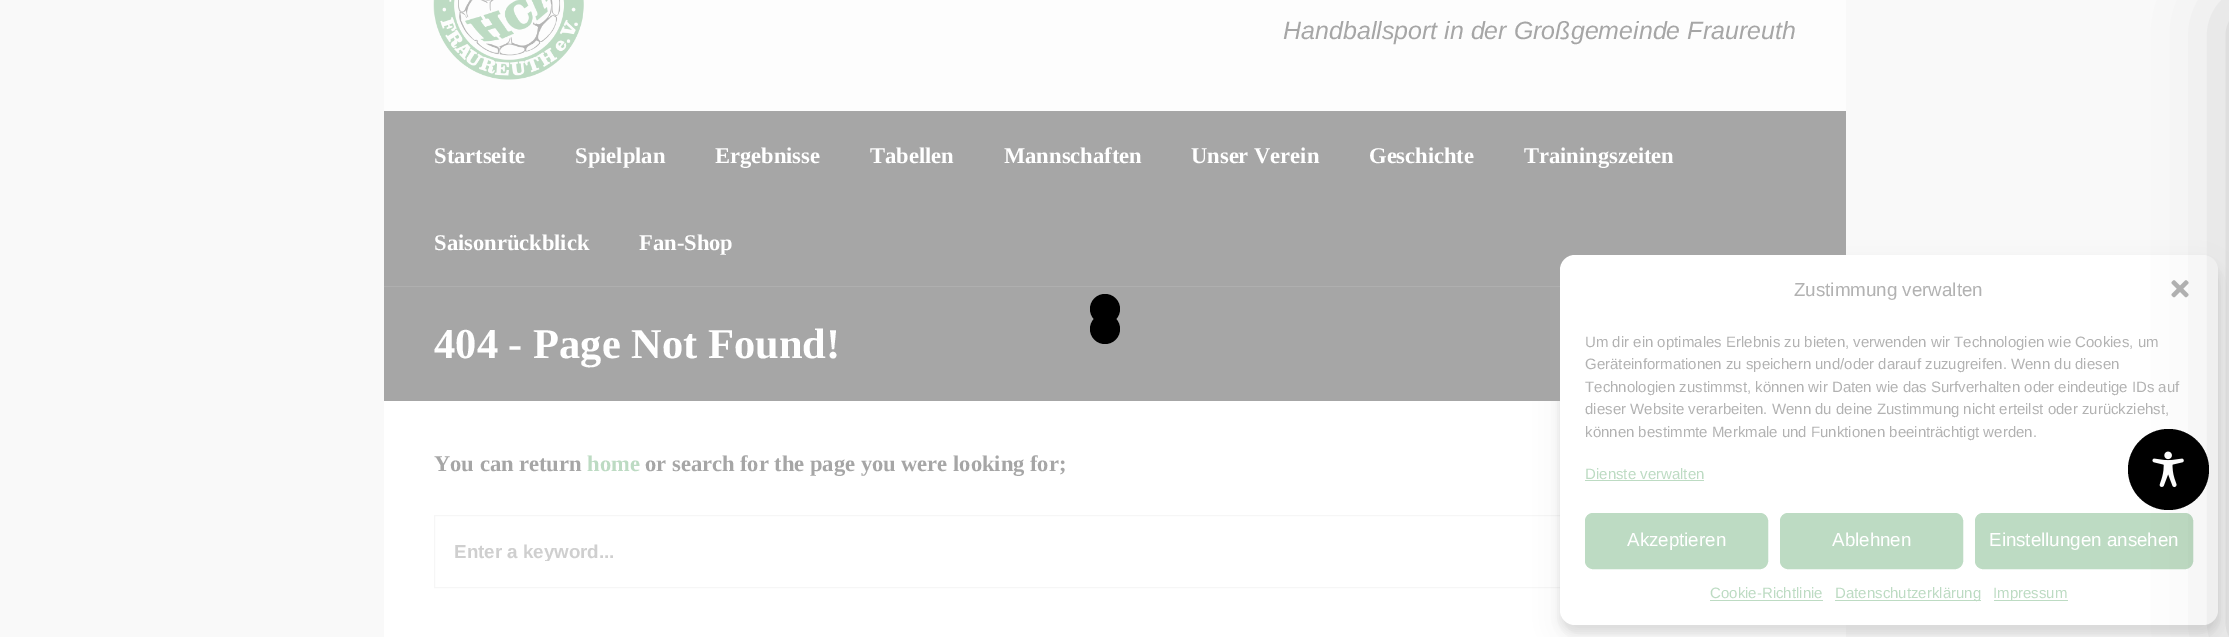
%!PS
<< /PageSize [2229 637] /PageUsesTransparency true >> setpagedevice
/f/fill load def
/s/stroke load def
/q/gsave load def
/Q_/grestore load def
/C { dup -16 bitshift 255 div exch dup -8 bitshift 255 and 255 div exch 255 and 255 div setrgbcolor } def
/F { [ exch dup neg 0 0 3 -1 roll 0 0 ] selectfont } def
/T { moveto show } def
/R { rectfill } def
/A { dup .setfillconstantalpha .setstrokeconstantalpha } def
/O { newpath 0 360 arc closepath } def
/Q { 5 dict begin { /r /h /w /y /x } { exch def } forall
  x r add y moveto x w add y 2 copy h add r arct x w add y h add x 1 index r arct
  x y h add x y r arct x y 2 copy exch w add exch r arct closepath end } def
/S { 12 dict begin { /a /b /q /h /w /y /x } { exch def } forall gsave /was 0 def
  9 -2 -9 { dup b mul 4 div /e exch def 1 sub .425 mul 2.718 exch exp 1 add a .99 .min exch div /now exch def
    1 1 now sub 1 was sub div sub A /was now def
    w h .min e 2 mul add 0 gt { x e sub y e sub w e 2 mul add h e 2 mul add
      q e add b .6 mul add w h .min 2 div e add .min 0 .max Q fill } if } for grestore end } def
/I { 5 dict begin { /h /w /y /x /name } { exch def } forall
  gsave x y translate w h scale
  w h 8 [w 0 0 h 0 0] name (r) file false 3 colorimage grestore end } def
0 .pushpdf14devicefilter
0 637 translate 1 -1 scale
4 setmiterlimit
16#F9F9F9 C
0 0 2229 637 R
16#FDFDFD C
384 0 1462 111 R
(1.rgb) 433 0 151 80 I
/LiberationSans-Italic 25 F
16#A6A6A6 C
(Handballsport in der Großgemeinde Fraureuth) 1283 39 T
384 111 1462 175 R
384 287 1176 114 R
16#AFAFAF C
384 286 1176 1 R
16#FFFFFF C
384 401 1462 236 R
16#F6F6F6 C
434.5 515.5 1249 72 rectstroke
16#A6A6A6 C
1560 263 658 370 15 4 .23 S
1560 268 658 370 15 12.5 .19 S
16#FFFFFF C
1560 255 658 370 15 Q f
16#000000 C
2168.5 469.5 40.5 O f
(2.rgb) 2152 451 32 37 I
(3.rgb) 2171 280 18 18 I
16#BDDBC3 C
1975.5 513.5 217 55 7.5 Q q f Q_
s
16#000000 C
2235 13 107 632 0 37.5 .2 S
/LiberationSerif-Bold 22.5 F
16#FFFFFF C
(Startseite) 434 163 T
(Spielplan) 575 163 T
(Ergebnisse) 715 163 T
(Tabellen) 870 163 T
(Mannschaften) 1004 163 T
(Unser Verein) 1191 163 T
(Geschichte) 1369 163 T
(Trainingszeiten) 1524 163 T
(Saisonrückblick) 434 250 T
(Fan-Shop) 639 250 T
/LiberationSerif-Bold 42.5 F
(404 - Page Not Found!) 434 358 T
/LiberationSerif-Bold 22.5 F
16#A6A6A6 C
(You can return) 434 471 T
16#BDDBC3 C
(home) 587 471 T
16#A6A6A6 C
(or search for the page you were looking for;) 645 471 T
q
454 540 1210 21 rectclip
/LiberationSans-Bold 18.75 F
16#CFCFCF C
(Enter a keyword...) 454 558 T
Q_
/LiberationSans-Regular 18.75 F
16#B2B2B2 C
(Zustimmung verwalten) 1794 296 T
/LiberationSans-Regular 15 F
(Um dir ein optimales Erlebnis zu bieten, verwenden wir Technologien wie Cookies, um) 1585 347 T
(Geräteinformationen zu speichern und/oder darauf zuzugreifen. Wenn du diesen) 1585 369 T
(Technologien zustimmst, können wir Daten wie das Surfverhalten oder eindeutige IDs auf) 1585 392 T
(dieser Website verarbeiten. Wenn du deine Zustimmung nicht erteilst oder zurückziehst,) 1585 414 T
(können bestimmte Merkmale und Funktionen beeinträchtigt werden.) 1585 437 T
16#BDDBC3 C
(Dienste verwalten) 1585 479 T
1585 480 119 1 R
1585.5 513.5 182 55 7.5 Q q f Q_
s
/LiberationSans-Regular 18.75 F
16#FFFFFF C
(Akzeptieren) 1627 546 T
16#BDDBC3 C
1780.5 513.5 182 55 7.5 Q q f Q_
s
16#FFFFFF C
(Ablehnen) 1832 546 T
(Einstellungen ansehen) 1989 546 T
/LiberationSans-Regular 15 F
16#BDDBC3 C
(Cookie-Richtlinie) 1710 598 T
1710 600 113 1 R
1835 600 146 1 R
(Datenschutzerklärung) 1835 598 T
1994 600 74 1 R
(Impressum) 1993 598 T
16#000000 C
1105 309 15 O f
1105 329 15 O f
.poppdf14devicefilter showpage
